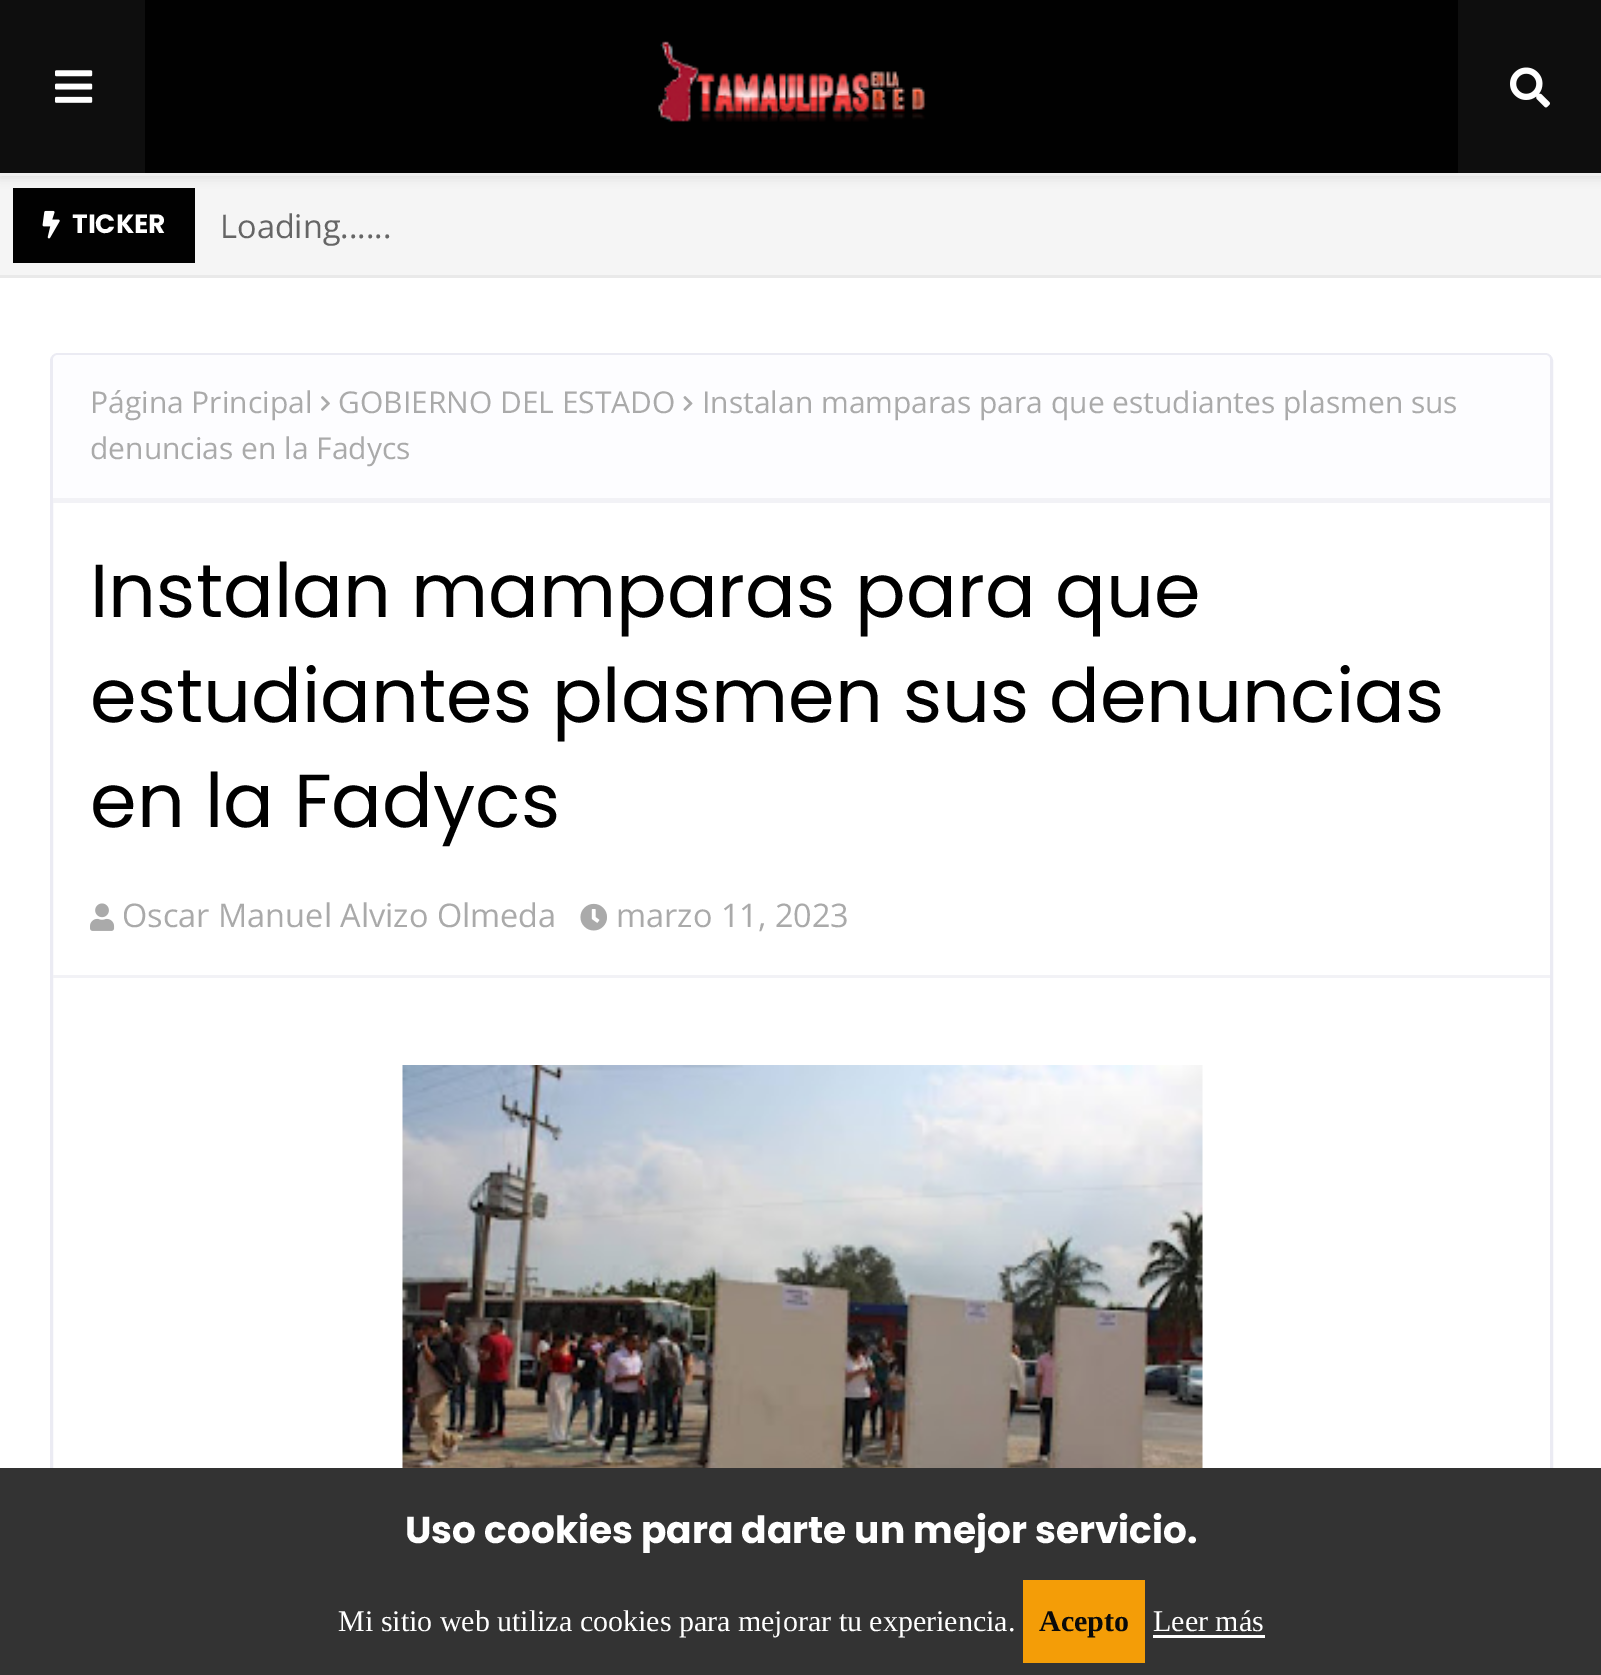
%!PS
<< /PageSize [1601 1675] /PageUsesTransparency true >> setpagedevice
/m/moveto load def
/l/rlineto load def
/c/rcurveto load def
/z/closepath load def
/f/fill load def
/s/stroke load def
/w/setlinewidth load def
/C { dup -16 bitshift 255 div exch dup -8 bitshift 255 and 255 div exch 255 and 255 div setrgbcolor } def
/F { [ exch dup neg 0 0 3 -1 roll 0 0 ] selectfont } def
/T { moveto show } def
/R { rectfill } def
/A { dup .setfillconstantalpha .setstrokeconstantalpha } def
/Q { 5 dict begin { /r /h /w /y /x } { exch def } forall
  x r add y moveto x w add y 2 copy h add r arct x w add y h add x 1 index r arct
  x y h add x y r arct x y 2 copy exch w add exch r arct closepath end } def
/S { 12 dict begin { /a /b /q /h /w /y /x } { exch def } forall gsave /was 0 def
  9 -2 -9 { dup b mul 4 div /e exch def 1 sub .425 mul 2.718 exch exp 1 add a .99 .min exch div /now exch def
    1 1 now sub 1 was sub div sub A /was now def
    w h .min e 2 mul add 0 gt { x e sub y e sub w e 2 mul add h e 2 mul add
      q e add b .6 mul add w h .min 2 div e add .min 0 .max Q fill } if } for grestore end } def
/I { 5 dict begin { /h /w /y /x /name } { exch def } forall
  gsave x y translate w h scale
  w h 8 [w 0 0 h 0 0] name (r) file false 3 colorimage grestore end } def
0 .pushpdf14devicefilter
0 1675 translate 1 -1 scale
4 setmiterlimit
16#FFFFFF C
0 0 1601 1675 R
16#F5F5F5 C
0 176 1601 99 R
16#010101 C
13 188 182 75 R
16#000000 C
0 3 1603 175 0 5 .1 S
16#010101 C
145 0 1313 173 R
16#0E0E0E C
0 0 145 173 R
1458 0 143 173 R
16#EEEEEE C
0 173 1601 3 R
(1.rgb) 55 70 38 33 I
(2.rgb) 658 41 269 81 I
(3.rgb) 1510 67 40 41 I
16#E9E9E9 C
0 275 1601 3 R
(4.rgb) 42 210 18 29 I
/Poppins-Bold 26.5 F
16#FFFFFF C
(TICKER) 72 233 T
/OpenSans-Regular 32.5 F
16#656565 C
(Loading......) 220 238 T
16#EBEBF3 C
3 w
51.5 354.5 1500 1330 6.5 Q s
16#FDFDFF C
58 355 m 1487 0 l 3 0 5 2 5 5 c 0 143 l -1497 0 l 0 -143 l 0 -3 2 -5 5 -5 c z f
16#F2F2F6 C
53 498 1497 5 R
/OpenSans-Regular 30 F
16#AAAAAA C
(Página Principal) 90 413 T
(5.rgb) 321 396 9 15 I
(GOBIERNO DEL ESTADO) 338 413 T
(6.rgb) 683 396 10 15 I
(Instalan mamparas para que estudiantes plasmen sus) 702 413 T
(denuncias en la Fadycs) 90 459 T
/Poppins-Regular 75 F
16#000000 C
(Instalan mamparas para que) 90 617 T
(estudiantes plasmen sus denuncias) 90 722 T
(en la Fadycs) 90 827 T
(7.rgb) 90 903 25 28 I
/OpenSans-Regular 32.5 F
16#AAAAAA C
(Oscar Manuel Alvizo Olmeda) 122 927 T
(8.rgb) 580 903 27 28 I
(marzo 11, 2023) 616 927 T
16#F2F2F6 C
53 975 1497 3 R
(9.rgb) 402 1065 801 403 I
16#333333 C
0 1468 1601 207 R
/Poppins-Bold 37.5 F
16#FFFFFF C
(Uso cookies para darte un mejor servicio.) 405 1543 T
/LiberationSerif-Regular 30 F
(Mi sitio web utiliza cookies para mejorar tu experiencia.) 338 1631 T
16#F49D07 C
1023 1580 122 83 R
/LiberationSerif-Bold 30 F
16#0A0A0A C
(Acepto) 1039 1631 T
/LiberationSerif-Regular 30 F
16#FFFFFF C
(Leer más) 1153 1631 T
1153 1635 112 3 R
.poppdf14devicefilter showpage
